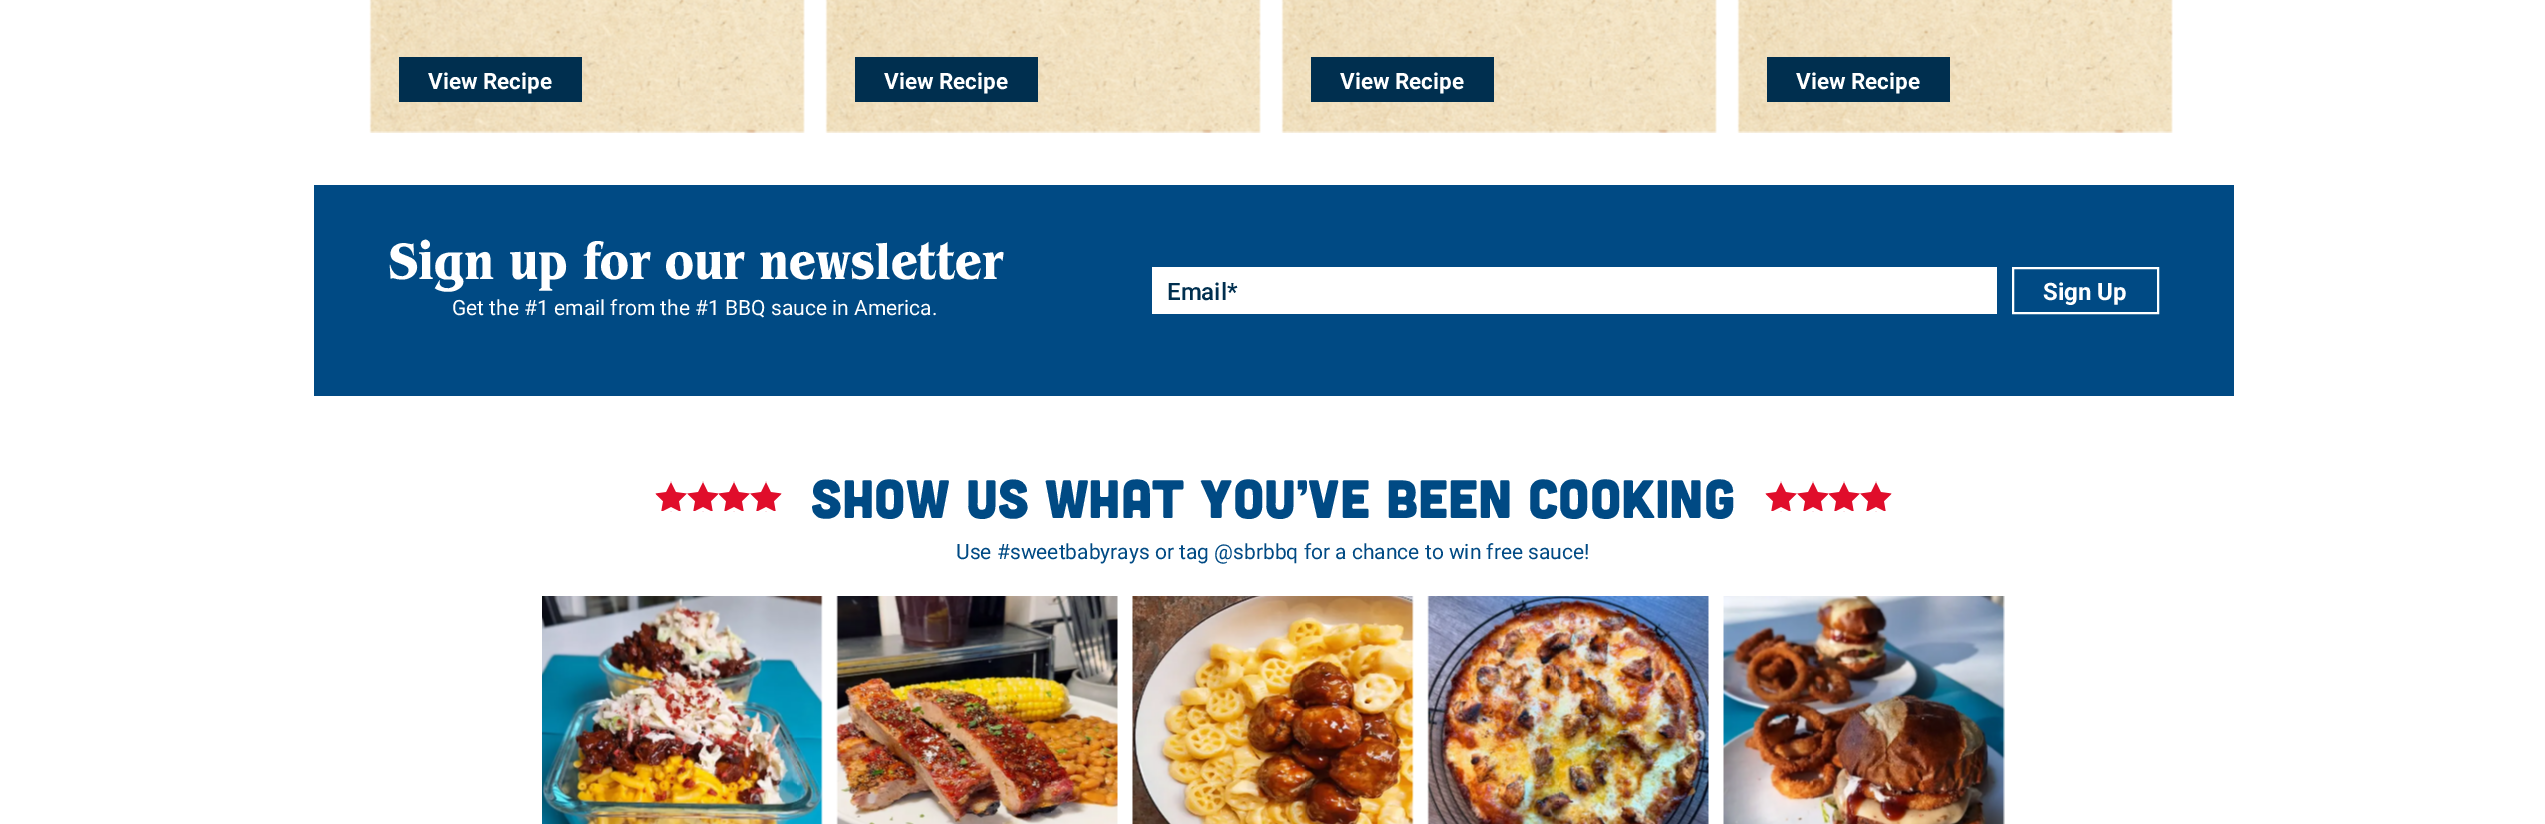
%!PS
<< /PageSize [2545 824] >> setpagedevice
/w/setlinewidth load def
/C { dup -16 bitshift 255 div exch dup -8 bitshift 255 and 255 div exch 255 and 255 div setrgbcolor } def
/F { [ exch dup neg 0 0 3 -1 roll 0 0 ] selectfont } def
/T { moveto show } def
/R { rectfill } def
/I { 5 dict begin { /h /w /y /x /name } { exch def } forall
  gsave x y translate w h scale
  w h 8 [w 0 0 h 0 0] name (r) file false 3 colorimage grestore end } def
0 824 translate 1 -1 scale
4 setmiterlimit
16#FFFFFF C
0 0 2545 824 R
(1.rgb) 369 0 436 133 I
16#002F4F C
399 57 183 45 R
/Roboto-Bold 22.5 F
16#FFFFFF C
(View Recipe) 428 89 T
(2.rgb) 825 0 436 133 I
16#002F4F C
855 57 183 45 R
16#FFFFFF C
(View Recipe) 884 89 T
(3.rgb) 1281 0 436 133 I
16#002F4F C
1311 57 183 45 R
16#FFFFFF C
(View Recipe) 1340 89 T
(4.rgb) 1737 0 436 133 I
16#002F4F C
1767 57 183 45 R
16#FFFFFF C
(View Recipe) 1796 89 T
16#004A84 C
314 185 1920 211 R
/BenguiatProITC-Bold 54 F
16#FFFFFF C
(Sign up for our newsletter) 388 279 T
/Roboto-Regular 21 F
(Get the #1 email from the #1 BBQ sauce in America.) 452 315 T
1152 267 845 47 R
/Roboto-Medium 24 F
16#002F4F C
(Email*) 1167 300 T
16#FFFFFF C
2 w
2013 268 145 45 rectstroke
/Roboto-Bold 24 F
(Sign Up) 2043 300 T
(5.rgb) 655 481 127 31 I
/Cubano-Regular 54 F
16#004A84 C
(Show us what you’ve been cooking) 811 518 T
(5.rgb) 1765 481 127 31 I
/Roboto-Regular 21 F
(Use #sweetbabyrays or tag @sbrbbq for a chance to win free sauce!) 956 559 T
(6.rgb) 542 596 281 228 I
(7.rgb) 836 596 282 228 I
(8.rgb) 1132 596 282 228 I
(9.rgb) 1427 596 282 228 I
(10.rgb) 1723 596 282 228 I
showpage
